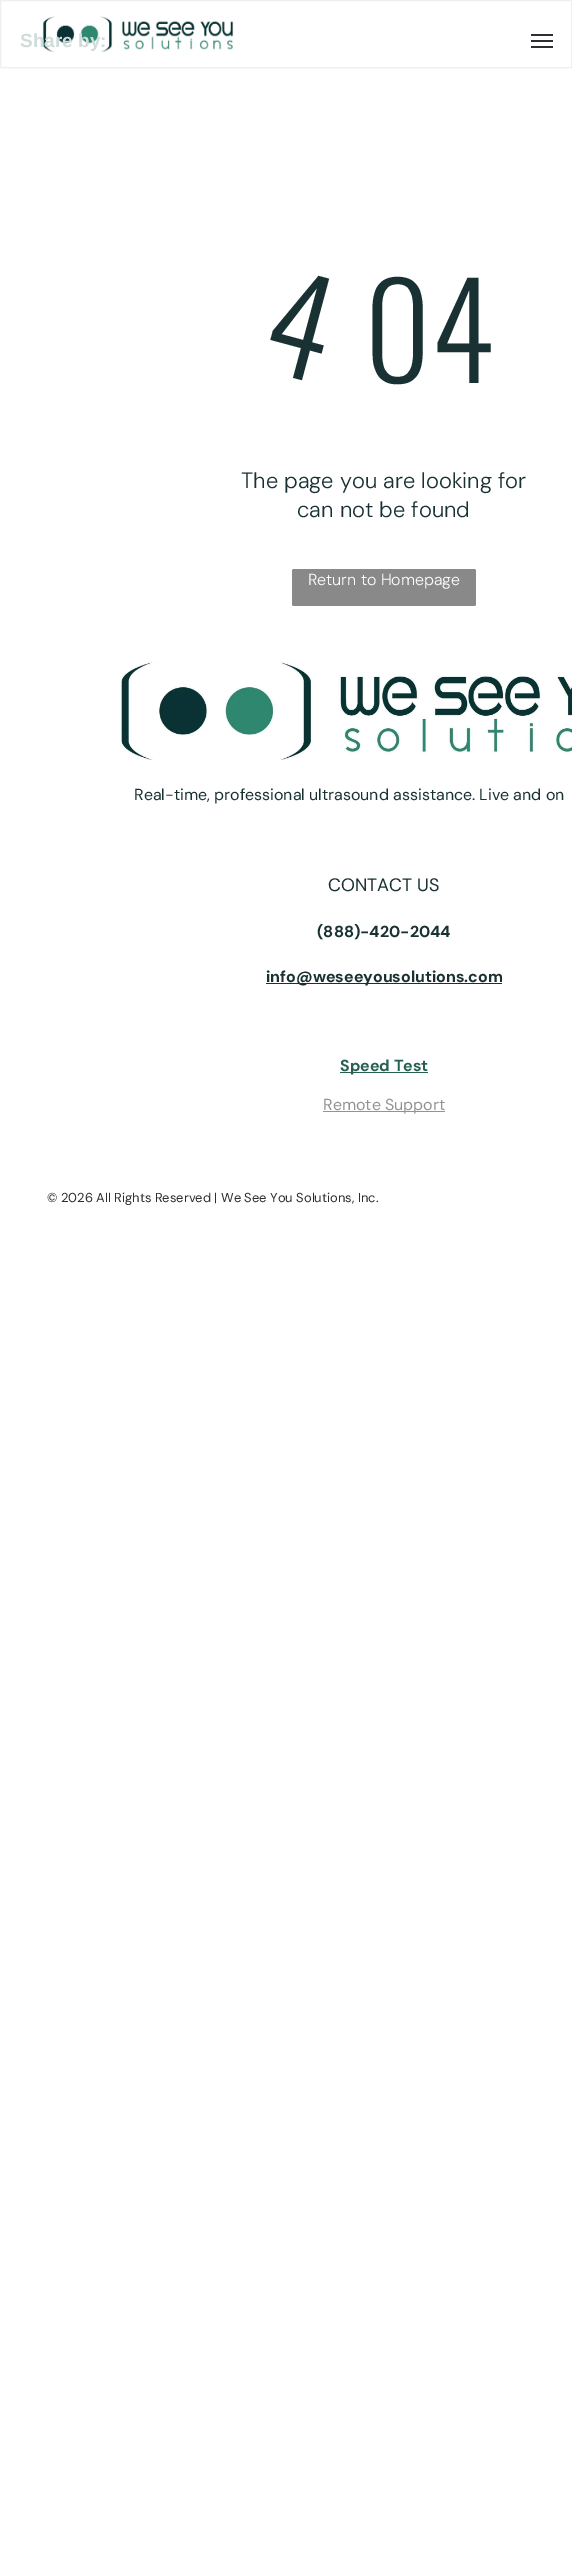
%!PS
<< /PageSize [572 2566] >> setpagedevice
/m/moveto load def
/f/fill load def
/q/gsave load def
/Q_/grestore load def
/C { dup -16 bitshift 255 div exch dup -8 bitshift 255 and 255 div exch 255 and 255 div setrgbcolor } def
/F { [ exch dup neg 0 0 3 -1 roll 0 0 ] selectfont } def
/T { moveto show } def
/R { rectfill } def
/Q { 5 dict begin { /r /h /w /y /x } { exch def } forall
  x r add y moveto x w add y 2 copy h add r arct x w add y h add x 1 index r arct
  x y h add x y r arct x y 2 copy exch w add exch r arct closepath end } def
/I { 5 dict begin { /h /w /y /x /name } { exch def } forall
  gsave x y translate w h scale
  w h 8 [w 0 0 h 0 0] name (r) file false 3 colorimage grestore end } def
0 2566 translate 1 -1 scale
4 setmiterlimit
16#FFFFFF C
0 0 572 2566 R
16#EFEFEF C
.5 .5 571 67 rectstroke
(1.rgb) 42 16 192 36 I
/LiberationSans-Bold 19 F
16#CFDCDA C
(Share by:) 20 47 T
16#2D2E32 C
531 34 22 2 R
531 40 22 2 R
531 46 22 2 R
/Oswald-Light 130 F
16#193132 C
q 256 368 translate 15 rotate 0 0 m (4) show Q_
(04) 364 383 T
/DMSans-Light 22 F
(The page you are looking for) 241 488 T
(can not be found) 297 517 T
16#898989 C
292 569 184 37 2 Q f
/DMSans-Light 16 F
16#FFFFFF C
(Return to Homepage) 308 585 T
(2.rgb) 120 661 452 99 I
/DMSans-Regular 16 F
16#193132 C
(Real-time, professional ultrasound assistance. Live and on) 134 800 T
/DMSans-Regular 18 F
(CONTACT US) 328 891 T
/DMSans-Bold 16 F
(\(888\)-420-2044) 317 937 T
266 983 236 1 R
(info@weseeyousolutions.com) 266 982 T
16#256050 C
340 1072 88 1 R
(Speed Test) 340 1071 T
16#939393 C
323 1111 122 1 R
/DMSans-Regular 16 F
(Remote Support) 323 1110 T
/DMSans-Regular 13 F
16#2D2E32 C
(© 2026 All Rights Reserved | We See You Solutions, Inc.) 47 1202 T
showpage
